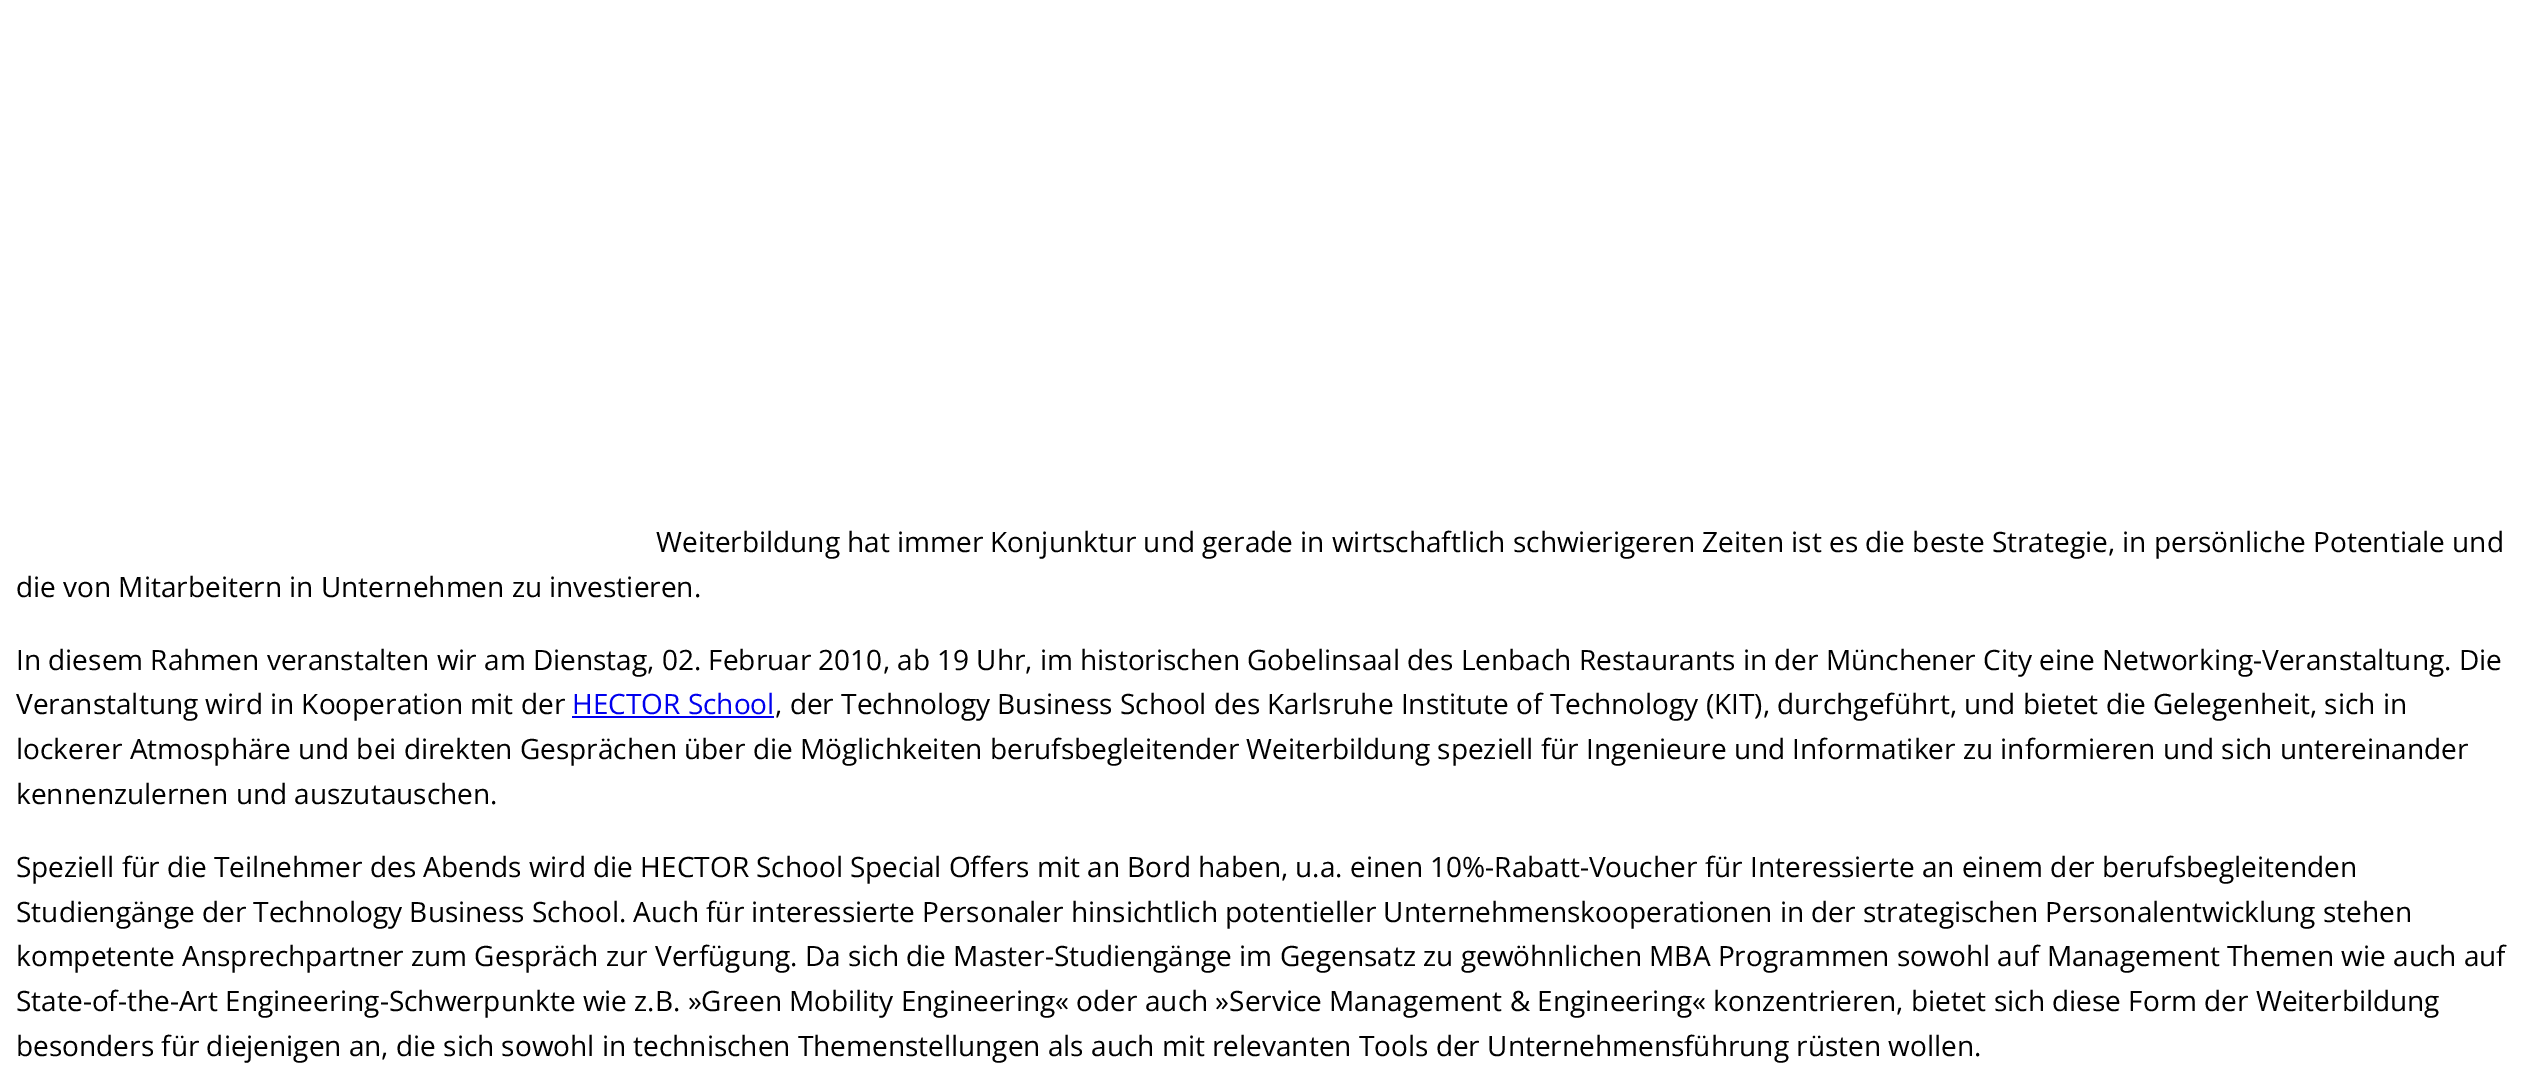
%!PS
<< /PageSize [2528 1092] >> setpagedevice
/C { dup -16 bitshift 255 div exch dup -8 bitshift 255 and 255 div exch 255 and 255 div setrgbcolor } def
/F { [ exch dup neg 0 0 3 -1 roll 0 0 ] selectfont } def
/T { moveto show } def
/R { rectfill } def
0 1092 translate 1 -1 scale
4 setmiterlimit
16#FFFFFF C
0 0 2528 1092 R
/OpenSans-Regular 28 F
16#000000 C
(Weiterbildung hat immer Konjunktur und gerade in wirtschaftlich schwierigeren Zeiten ist es die beste Strategie, in persönliche Potentiale und) 656 552 T
(die von Mitarbeitern in Unternehmen zu investieren.) 16 597 T
(In diesem Rahmen veranstalten wir am Dienstag, 02. Februar 2010, ab 19 Uhr, im historischen Gobelinsaal des Lenbach Restaurants in der Münchener City eine Networking-Veranstaltung. Die) 16 670 T
(Veranstaltung wird in Kooperation mit der) 16 714 T
16#0000EE C
(HECTOR School) 572 714 T
572 716 202 2 R
16#000000 C
(, der Technology Business School des Karlsruhe Institute of Technology \(KIT\), durchgeführt, und bietet die Gelegenheit, sich in) 775 714 T
(lockerer Atmosphäre und bei direkten Gesprächen über die Möglichkeiten berufsbegleitender Weiterbildung speziell für Ingenieure und Informatiker zu informieren und sich untereinander) 16 759 T
(kennenzulernen und auszutauschen.) 16 804 T
(Speziell für die Teilnehmer des Abends wird die HECTOR School Special Offers mit an Bord haben, u.a. einen 10%-Rabatt-Voucher für Interessierte an einem der berufsbegleitenden) 16 877 T
(Studiengänge der Technology Business School. Auch für interessierte Personaler hinsichtlich potentieller Unternehmenskooperationen in der strategischen Personalentwicklung stehen) 16 922 T
(kompetente Ansprechpartner zum Gespräch zur Verfügung. Da sich die Master-Studiengänge im Gegensatz zu gewöhnlichen MBA Programmen sowohl auf Management Themen wie auch auf) 16 966 T
(State-of-the-Art Engineering-Schwerpunkte wie z.B. »Green Mobility Engineering« oder auch »Service Management & Engineering« konzentrieren, bietet sich diese Form der Weiterbildung) 16 1011 T
(besonders für diejenigen an, die sich sowohl in technischen Themenstellungen als auch mit relevanten Tools der Unternehmensführung rüsten wollen.) 16 1056 T
showpage
